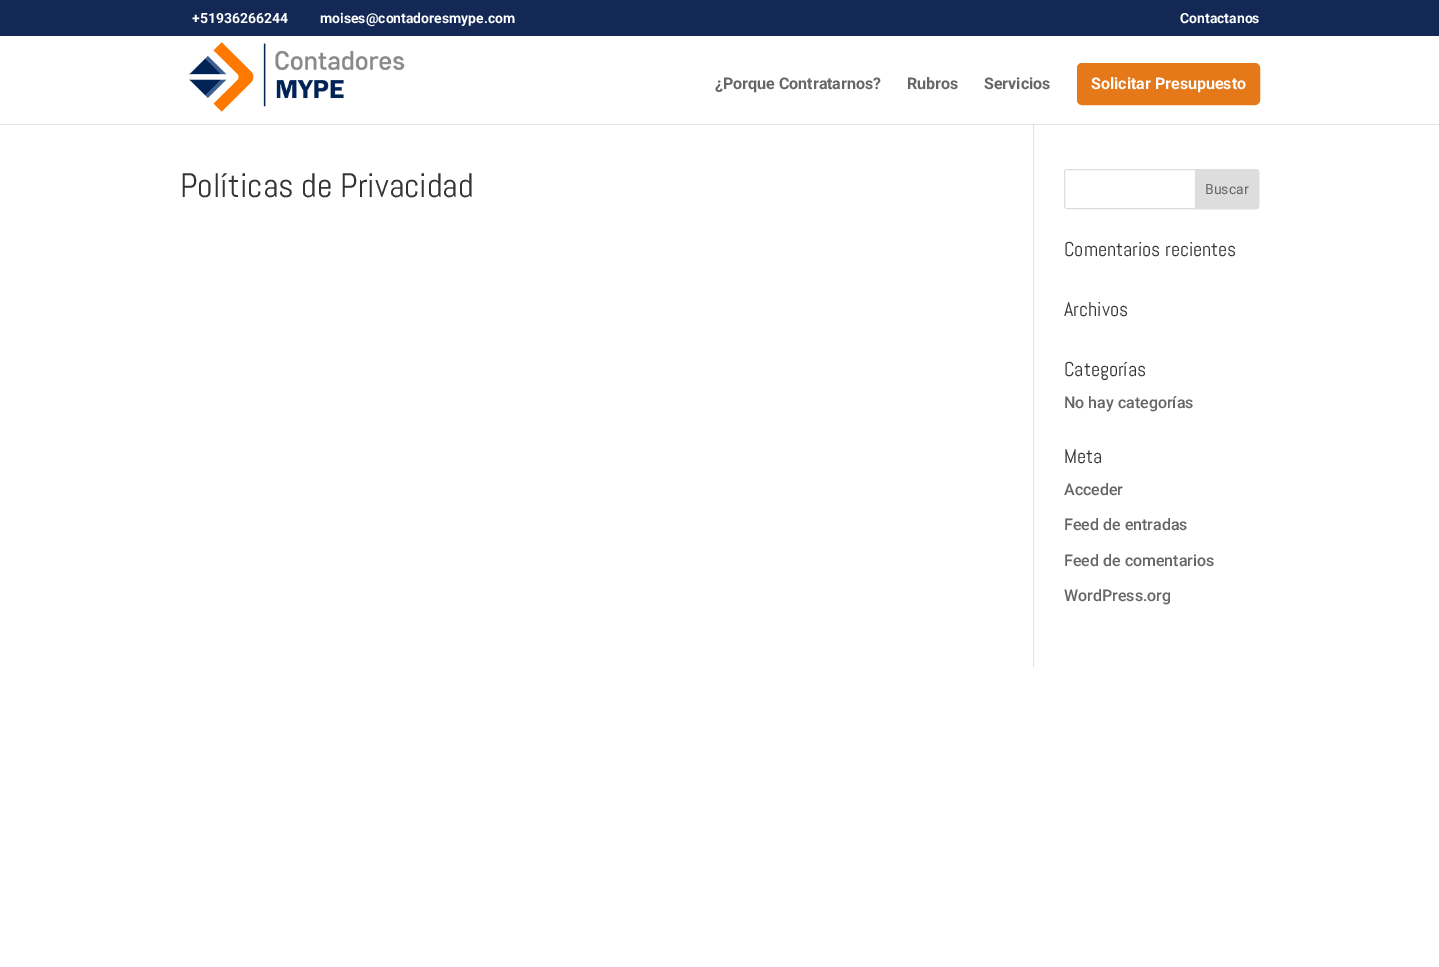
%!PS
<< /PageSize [1439 967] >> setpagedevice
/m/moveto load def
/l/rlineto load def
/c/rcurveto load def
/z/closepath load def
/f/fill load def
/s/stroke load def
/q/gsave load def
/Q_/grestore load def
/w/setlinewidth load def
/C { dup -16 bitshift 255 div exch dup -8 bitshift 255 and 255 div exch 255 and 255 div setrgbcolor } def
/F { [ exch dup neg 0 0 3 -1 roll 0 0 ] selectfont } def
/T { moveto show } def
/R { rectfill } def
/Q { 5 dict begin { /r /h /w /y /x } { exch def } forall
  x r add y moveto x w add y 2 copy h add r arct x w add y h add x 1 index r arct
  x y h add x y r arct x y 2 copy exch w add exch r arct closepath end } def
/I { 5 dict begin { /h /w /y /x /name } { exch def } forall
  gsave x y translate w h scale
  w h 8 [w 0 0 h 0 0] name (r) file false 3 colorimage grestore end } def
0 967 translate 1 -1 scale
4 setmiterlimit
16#FFFFFF C
0 0 1439 967 R
16#E6E6E6 C
0 124 1439 1 R
16#132855 C
0 0 1439 36 R
/Roboto-Bold 14 F
16#FFFFFF C
(+51936266244) 192 23 T
(moises@contadoresmype.com) 320 23 T
(Contactanos) 1180 23 T
(1.rgb) 189 42 216 71 I
/Roboto-Bold 16 F
16#666666 C
(¿Porque Contratarnos?) 715 89 T
(Rubros) 907 89 T
(Servicios) 984 89 T
16#E57819 C
1078 64 181 40 4 Q q f Q_
2 w
s
16#FFFFFF C
(Solicitar Presupuesto) 1091 89 T
16#E2E2E2 C
1033 125 1 542 R
16#CBCBCB C
1033 124 1 1 R
/Abel-Regular 34 F
16#333333 C
(Políticas de Privacidad) 180 197 T
16#DDDDDD C
1 w
1064.5 169.5 194 39 2.5 Q s
1195.5 169.5 m 60.5 0 l 1.5 0 2.5 1 2.5 2.5 c 0 34 l 0 1.5 -1 2.5 -2.5 2.5 c -60.5 0 l z q f Q_
s
/Roboto-Regular 14 F
16#666666 C
(Buscar) 1205 194 T
/Abel-Regular 20 F
16#333333 C
(Comentarios recientes) 1064 256 T
(Archivos) 1064 316 T
(Categorías) 1064 376 T
/Roboto-Medium 16 F
16#666666 C
(No hay categorías) 1064 408 T
/Abel-Regular 20 F
16#333333 C
(Meta) 1064 463 T
/Roboto-Medium 16 F
16#666666 C
(Acceder) 1064 495 T
(Feed de entradas) 1064 530 T
(Feed de comentarios) 1064 566 T
(WordPress.org) 1064 601 T
showpage
